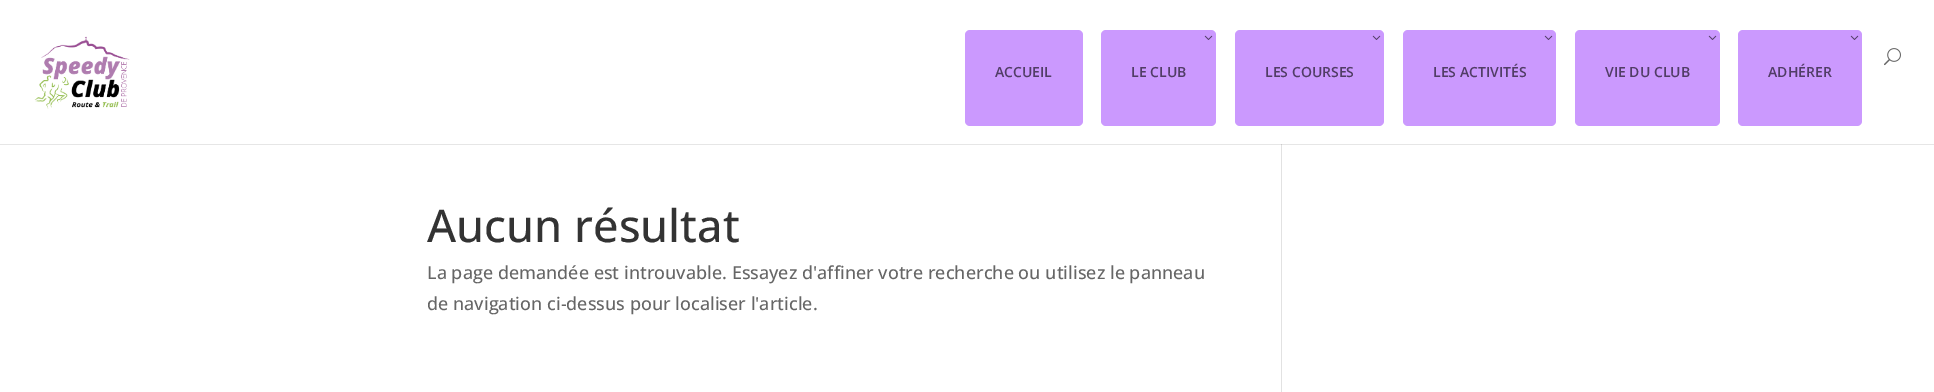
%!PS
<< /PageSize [1934 392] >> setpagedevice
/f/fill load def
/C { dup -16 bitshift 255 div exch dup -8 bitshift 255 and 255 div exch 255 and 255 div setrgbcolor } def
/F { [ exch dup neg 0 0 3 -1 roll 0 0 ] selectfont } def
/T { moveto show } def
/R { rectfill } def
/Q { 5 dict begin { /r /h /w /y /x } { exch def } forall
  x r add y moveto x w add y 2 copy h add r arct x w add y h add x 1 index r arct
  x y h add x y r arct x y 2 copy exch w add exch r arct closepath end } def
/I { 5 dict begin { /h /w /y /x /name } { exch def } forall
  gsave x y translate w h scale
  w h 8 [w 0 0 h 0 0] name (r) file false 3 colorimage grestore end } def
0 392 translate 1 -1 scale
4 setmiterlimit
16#FFFFFF C
0 0 1934 392 R
16#E6E6E6 C
0 144 1934 1 R
(1.rgb) 34 36 96 73 I
(2.rgb) 1884 48 17 18 I
16#CB99FE C
965 30 118 96 5 Q f
/OpenSans-SemiBold 14 F
16#513D66 C
(ACCUEIL) 995 77 T
16#CB99FE C
1101 30 115 96 5 Q f
(3.rgb) 1204 35 9 5 I
16#513D66 C
(LE CLUB) 1131 77 T
16#CB99FE C
1235 30 149 96 5 Q f
(3.rgb) 1372 35 9 5 I
16#513D66 C
(LES COURSES) 1265 77 T
16#CB99FE C
1403 30 153 96 5 Q f
(3.rgb) 1544 35 9 5 I
16#513D66 C
(LES ACTIVITÉS) 1433 77 T
16#CB99FE C
1575 30 145 96 5 Q f
(3.rgb) 1708 35 9 5 I
16#513D66 C
(VIE DU CLUB) 1605 77 T
16#CB99FE C
1738 30 124 96 5 Q f
(3.rgb) 1850 35 9 5 I
16#513D66 C
(ADHÉRER) 1768 77 T
/OpenSans-Medium 45 F
16#333333 C
(Aucun résultat) 427 242 T
/OpenSans-Medium 18 F
16#666666 C
(La page demandée est introuvable. Essayez d'affiner votre recherche ou utilisez le panneau) 427 279 T
(de navigation ci-dessus pour localiser l'article.) 427 310 T
16#E2E2E2 C
1281 144 1 248 R
16#CBCBCB C
1281 144 1 1 R
showpage
